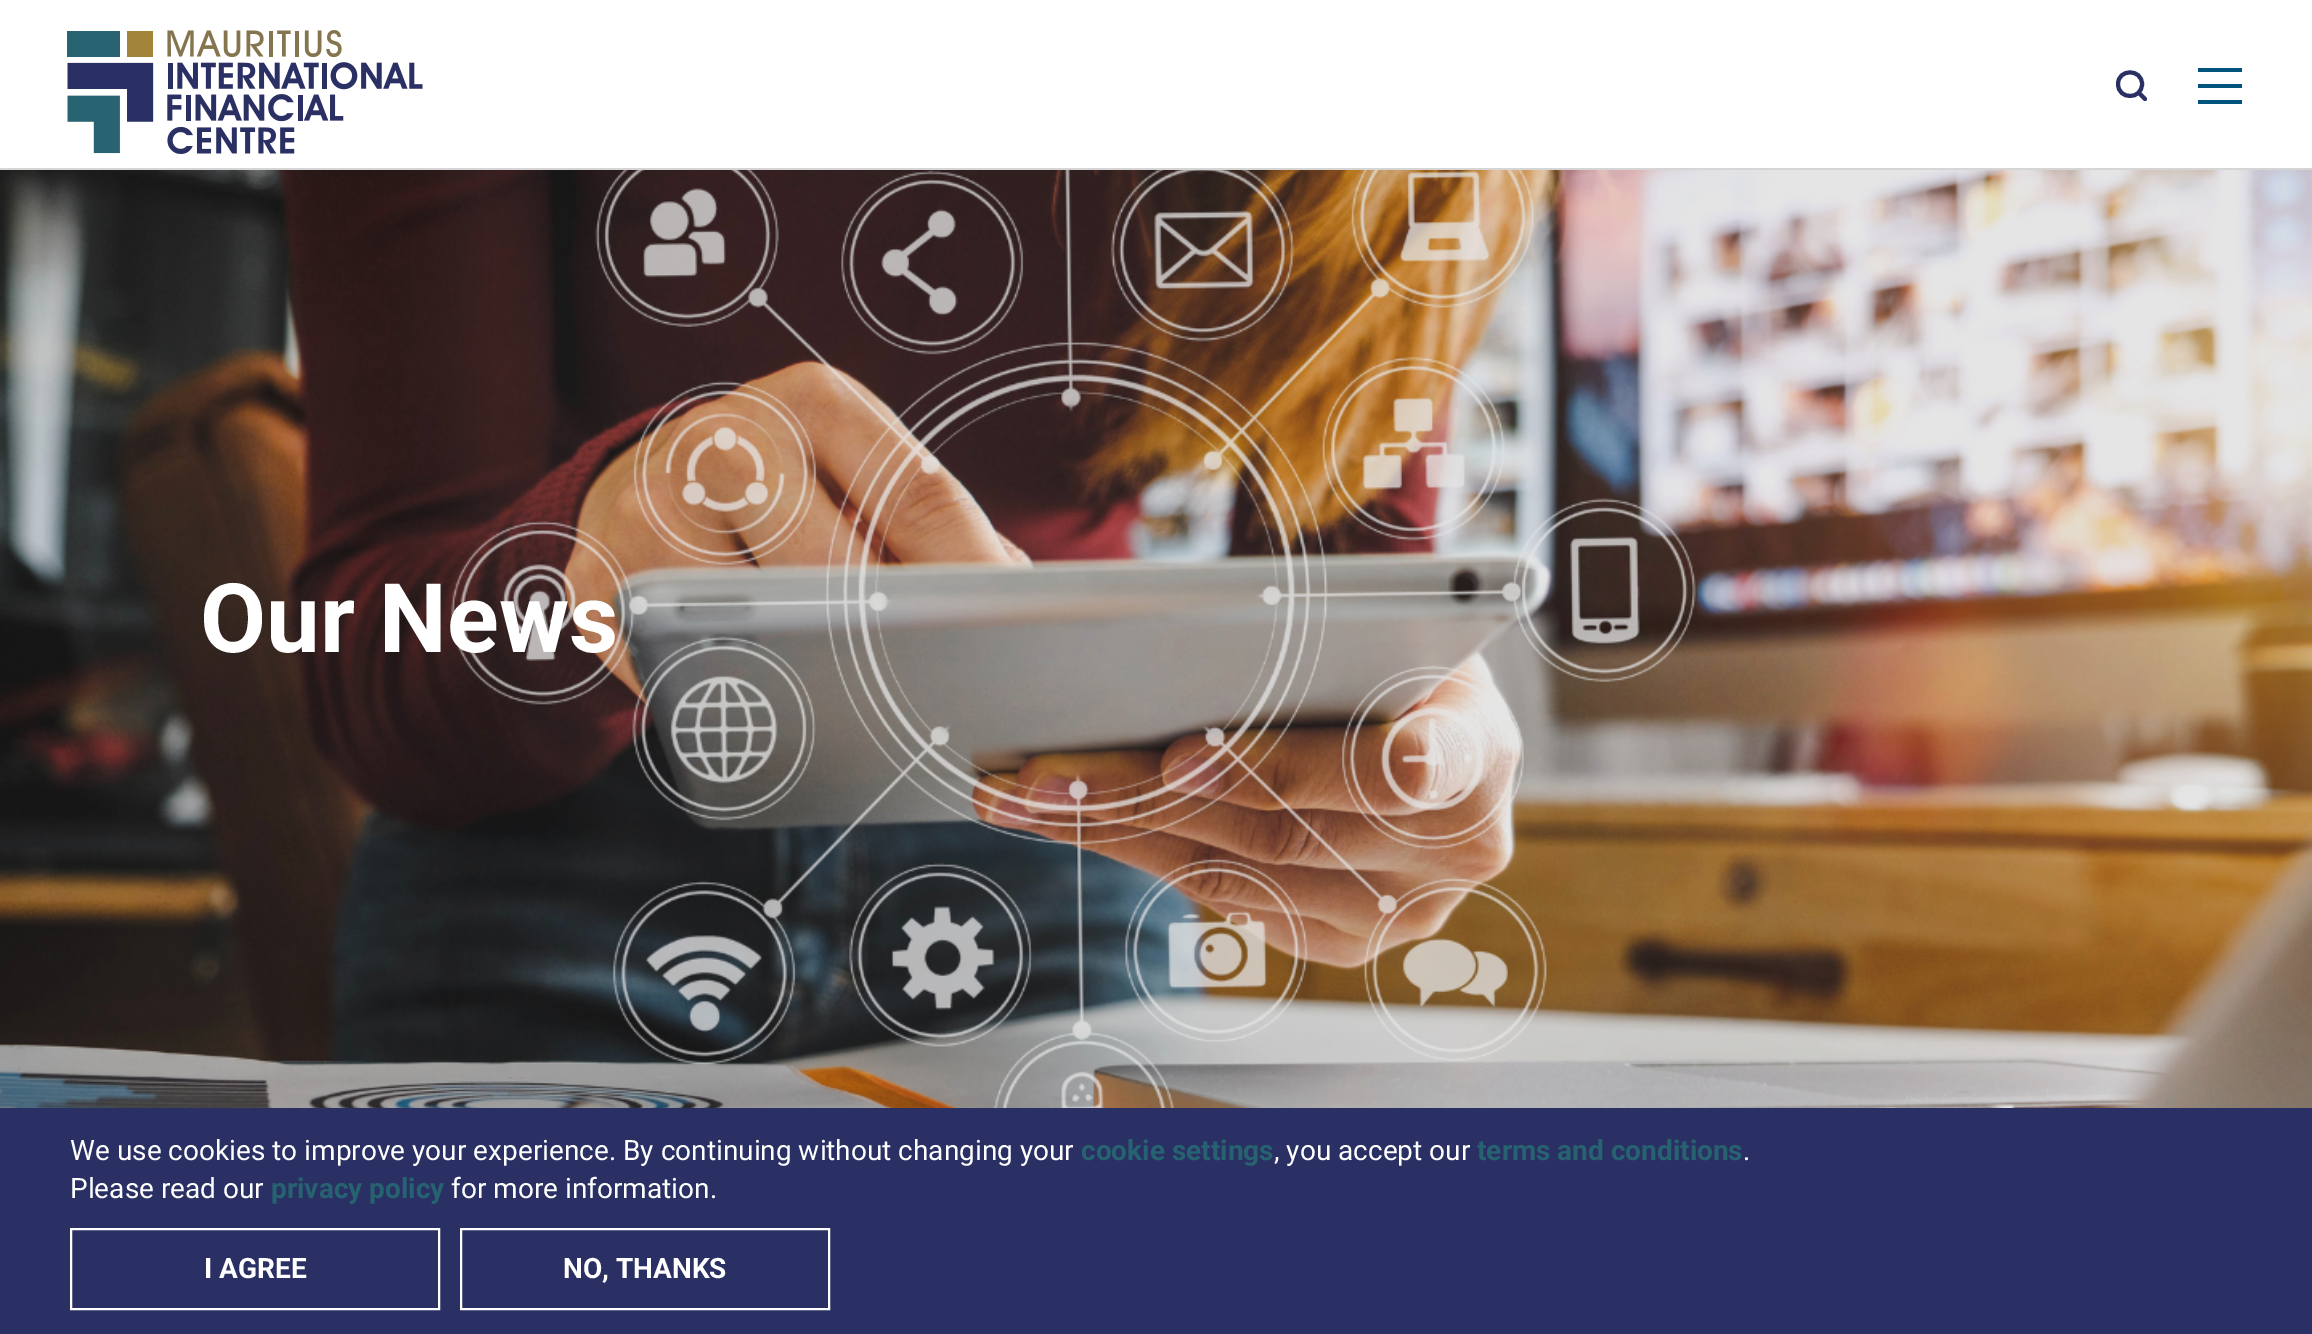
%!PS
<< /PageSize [2312 1334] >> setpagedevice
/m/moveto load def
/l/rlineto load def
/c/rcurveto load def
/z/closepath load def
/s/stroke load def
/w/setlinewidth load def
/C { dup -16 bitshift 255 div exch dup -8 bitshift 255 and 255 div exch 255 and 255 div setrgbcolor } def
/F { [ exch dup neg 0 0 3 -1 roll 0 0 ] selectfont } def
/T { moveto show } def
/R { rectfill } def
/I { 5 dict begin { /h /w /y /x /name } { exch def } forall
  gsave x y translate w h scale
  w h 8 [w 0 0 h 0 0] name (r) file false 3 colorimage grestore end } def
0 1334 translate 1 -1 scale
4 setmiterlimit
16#FFFFFF C
0 0 2312 1334 R
(1.rgb) 67 30 356 124 I
16#2A3063 C
4 w
1 setlinecap
1 setlinejoin
2142 84 m 0 16 -24 16 -24 0 c 0 -15.5 24 -15.5 24 0 c z 2145 99 m -6.5 -6.5 l s
16#00537A C
2198 68 44 4 R
2198 84 44 4 R
2198 100 44 4 R
16#D5D5D5 C
0 168 2312 2 R
(2.rgb) 0 170 2312 938 I
/Roboto-Bold 96 F
16#FFFFFF C
(Our News) 200 652 T
16#2A3063 C
0 1108 2312 226 R
/Roboto-Regular 28 F
16#FFFFFF C
(We use cookies to improve your experience. By continuing without changing your) 70 1160 T
/Roboto-Bold 28 F
16#276270 C
(cookie settings) 1081 1160 T
/Roboto-Regular 28 F
16#FFFFFF C
(, you accept our) 1274 1160 T
/Roboto-Bold 28 F
16#276270 C
(terms and conditions) 1477 1160 T
/Roboto-Regular 28 F
16#FFFFFF C
(.) 1743 1160 T
(Please read our) 70 1198 T
/Roboto-Bold 28 F
16#276270 C
(privacy policy) 271 1198 T
/Roboto-Regular 28 F
16#FFFFFF C
(for more information.) 451 1198 T
2 w
0 setlinecap
0 setlinejoin
71 1229 368 80 rectstroke
/Roboto-Bold 28 F
(I AGREE) 204 1278 T
461 1229 368 80 rectstroke
(NO, THANKS) 563 1278 T
showpage
